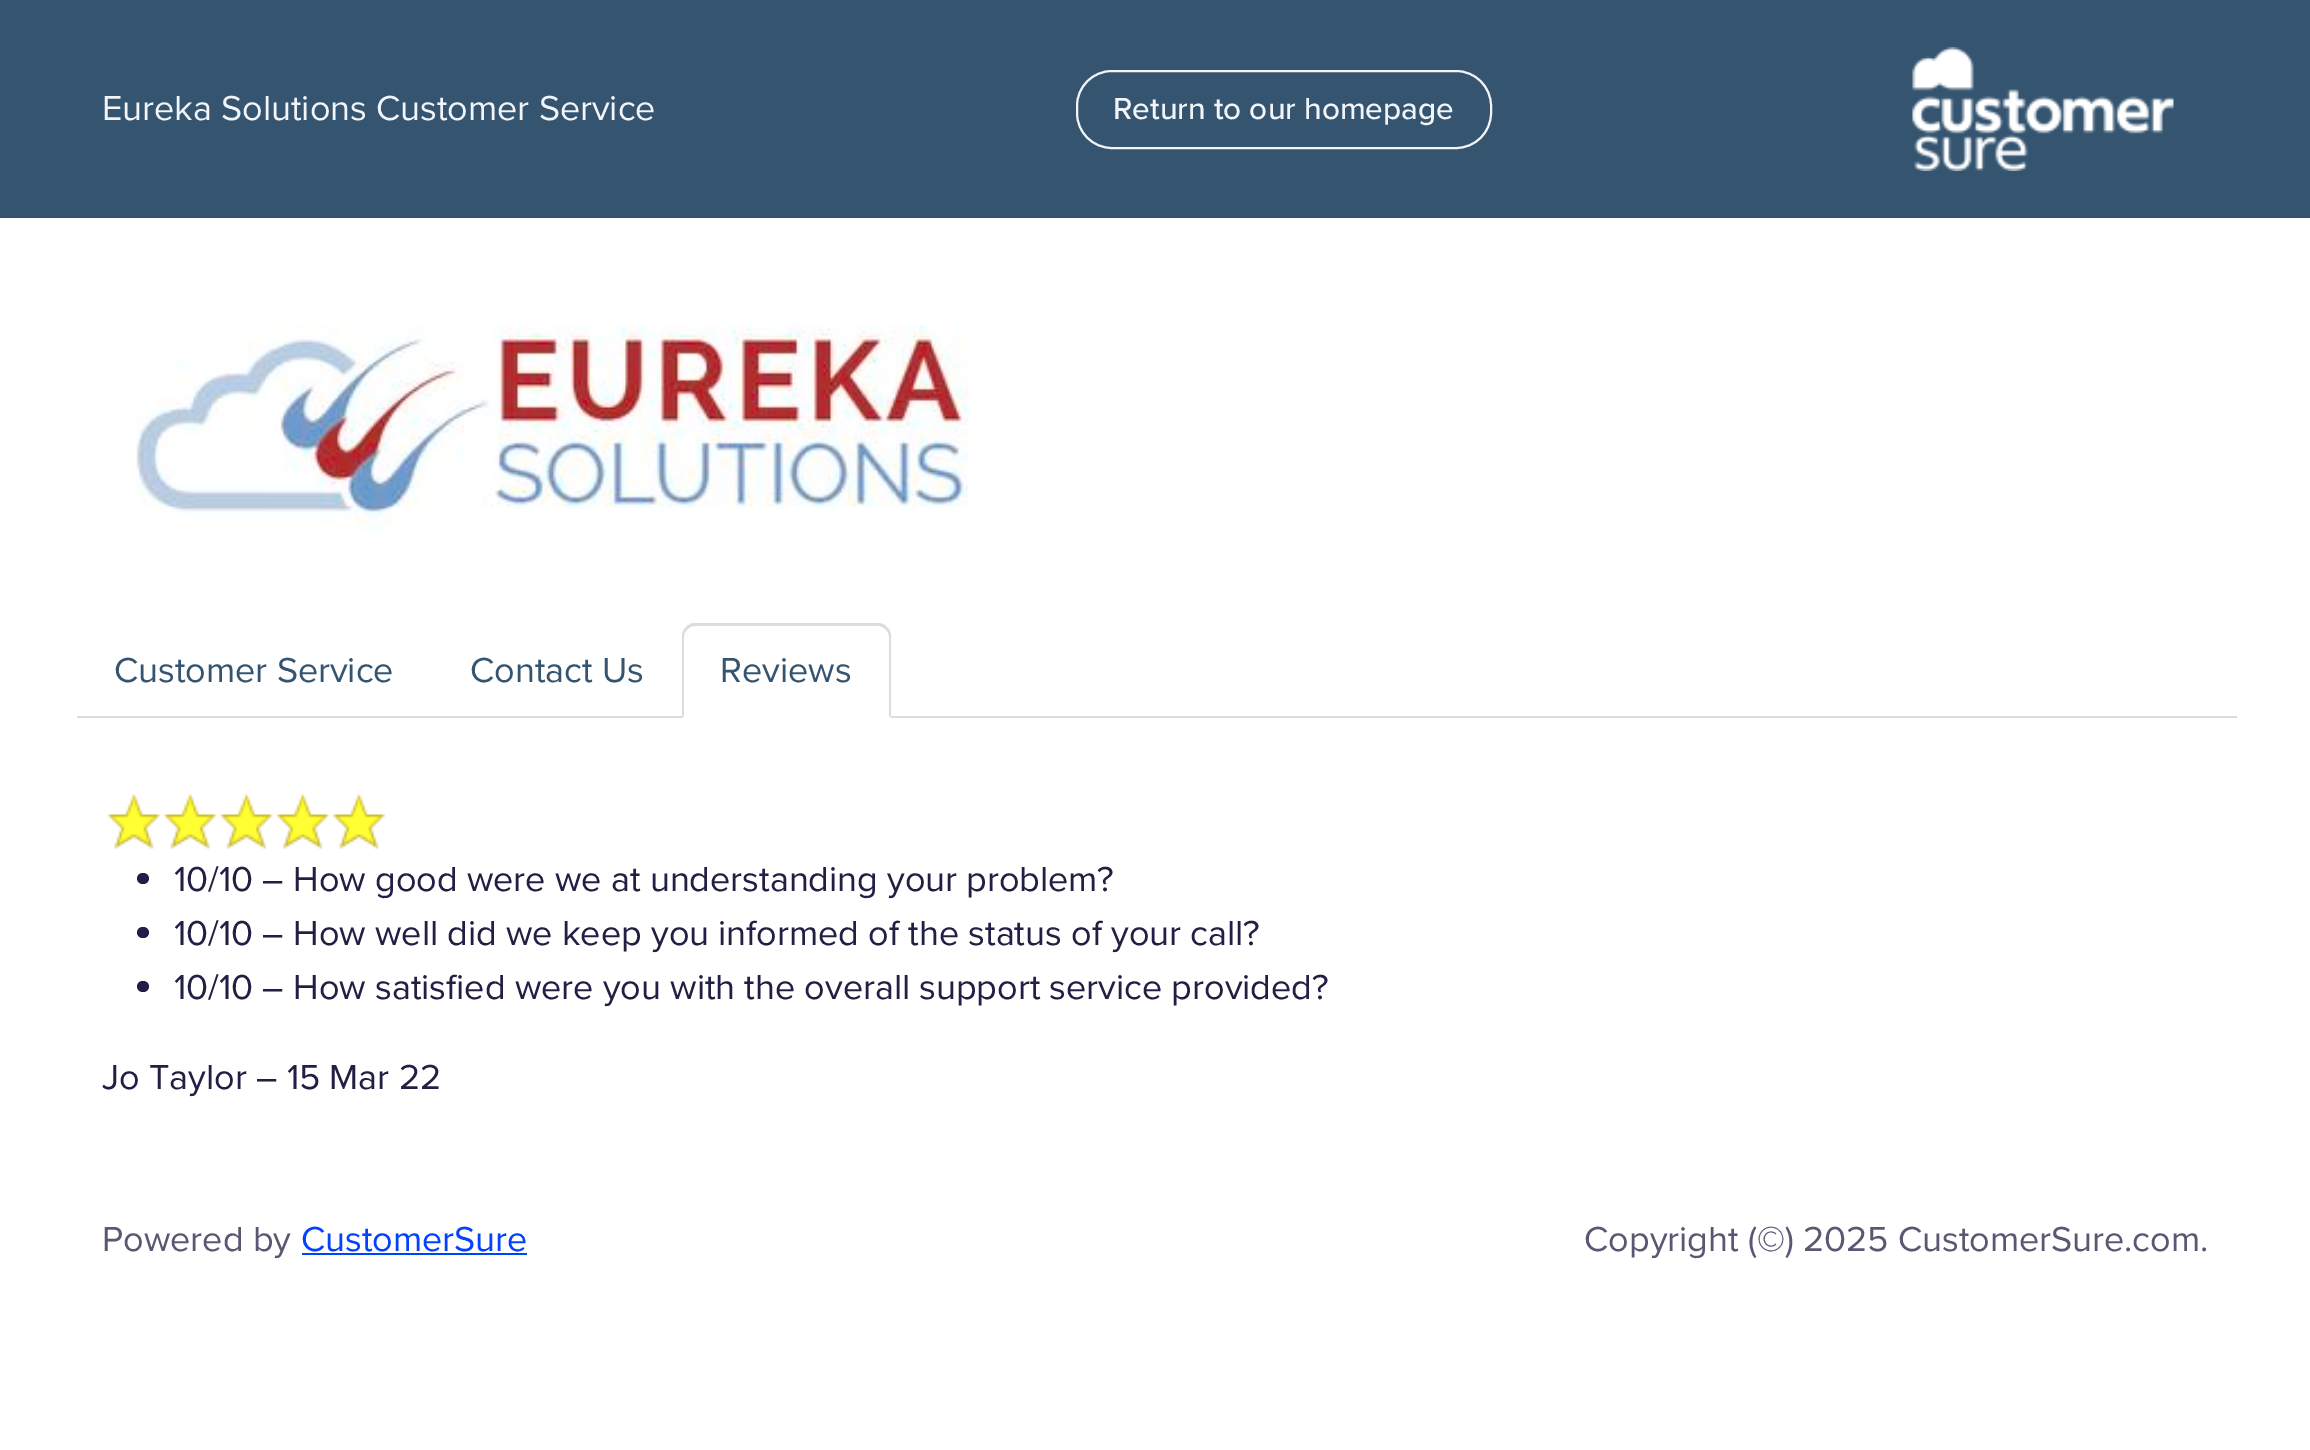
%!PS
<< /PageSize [2310 1450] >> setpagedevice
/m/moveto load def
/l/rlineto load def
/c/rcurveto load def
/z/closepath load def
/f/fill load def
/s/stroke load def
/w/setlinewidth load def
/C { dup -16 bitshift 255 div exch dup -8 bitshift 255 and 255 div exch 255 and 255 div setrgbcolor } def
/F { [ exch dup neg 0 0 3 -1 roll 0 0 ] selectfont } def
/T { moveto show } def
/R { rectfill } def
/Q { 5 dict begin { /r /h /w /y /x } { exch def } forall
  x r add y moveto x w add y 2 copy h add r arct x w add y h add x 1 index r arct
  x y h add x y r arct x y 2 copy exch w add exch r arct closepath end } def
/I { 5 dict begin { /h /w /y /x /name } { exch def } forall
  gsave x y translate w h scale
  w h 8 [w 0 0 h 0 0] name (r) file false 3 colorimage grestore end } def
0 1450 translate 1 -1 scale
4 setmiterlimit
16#FFFFFF C
0 0 2310 1450 R
16#345470 C
0 0 2310 218 R
/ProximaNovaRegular-Regular 36 F
16#F1F4F8 C
(Eureka Solutions Customer Service) 102 120 T
2 w
1077 71 414 77 35 Q s
/ProximaNova-Medium 31.5 F
(Return to our homepage) 1113 119 T
(1.rgb) 1912 47 262 124 I
(2.rgb) 135 324 835 208 I
16#D9DDE2 C
77 716 2160 2 R
/ProximaNovaRegular-Regular 36 F
16#345470 C
(Customer Service) 114 682 T
(Contact Us) 470 682 T
16#FFFFFF C
696 623 m 181 0 l 7.5 0 14 6.5 14 14 c 0 81 l -209 0 l 0 -81 l 0 -7.5 6.5 -14 14 -14 c z f
16#D9DDE2 C
695 626 m -3 0 -6 1 -7 3 c -2 -2 l 2 -2 4 -3 7 -4 c 187 0 l 3 1 5 2 7 4 c -2 2 l -2 -2 -4 -3 -7 -3 c z f
891 718 m 0 -81 l 0 -4 -1 -7 -4 -10 c -2 2 l 3 2 4 5 4 8 c 0 79 l z f
16#FFFFFF C
891 718 m -209 0 l 2 -2 l 205 0 l z f
16#D9DDE2 C
682 718 m 0 -81 l 0 -4 1 -7 4 -10 c 2 2 l -3 2 -4 5 -4 8 c 0 79 l z f
16#345470 C
(Reviews) 720 682 T
(3.rgb) 107 793 278 56 I
16#211F43 C
137 873 12 11 5.5 Q f
(10/10 – How good were we at understanding your problem?) 174 891 T
137 927 12 11 5.5 Q f
(10/10 – How well did we keep you informed of the status of your call?) 174 945 T
137 981 12 11 5.5 Q f
(10/10 – How satisfied were you with the overall support service provided?) 174 999 T
(Jo Taylor – 15 Mar 22) 102 1089 T
16#595772 C
(Powered by) 102 1251 T
16#0042FF C
(CustomerSure) 301 1251 T
302 1253 225 2 R
16#595772 C
(Copyright \(©\) 2025 CustomerSure.com.) 1584 1251 T
showpage
